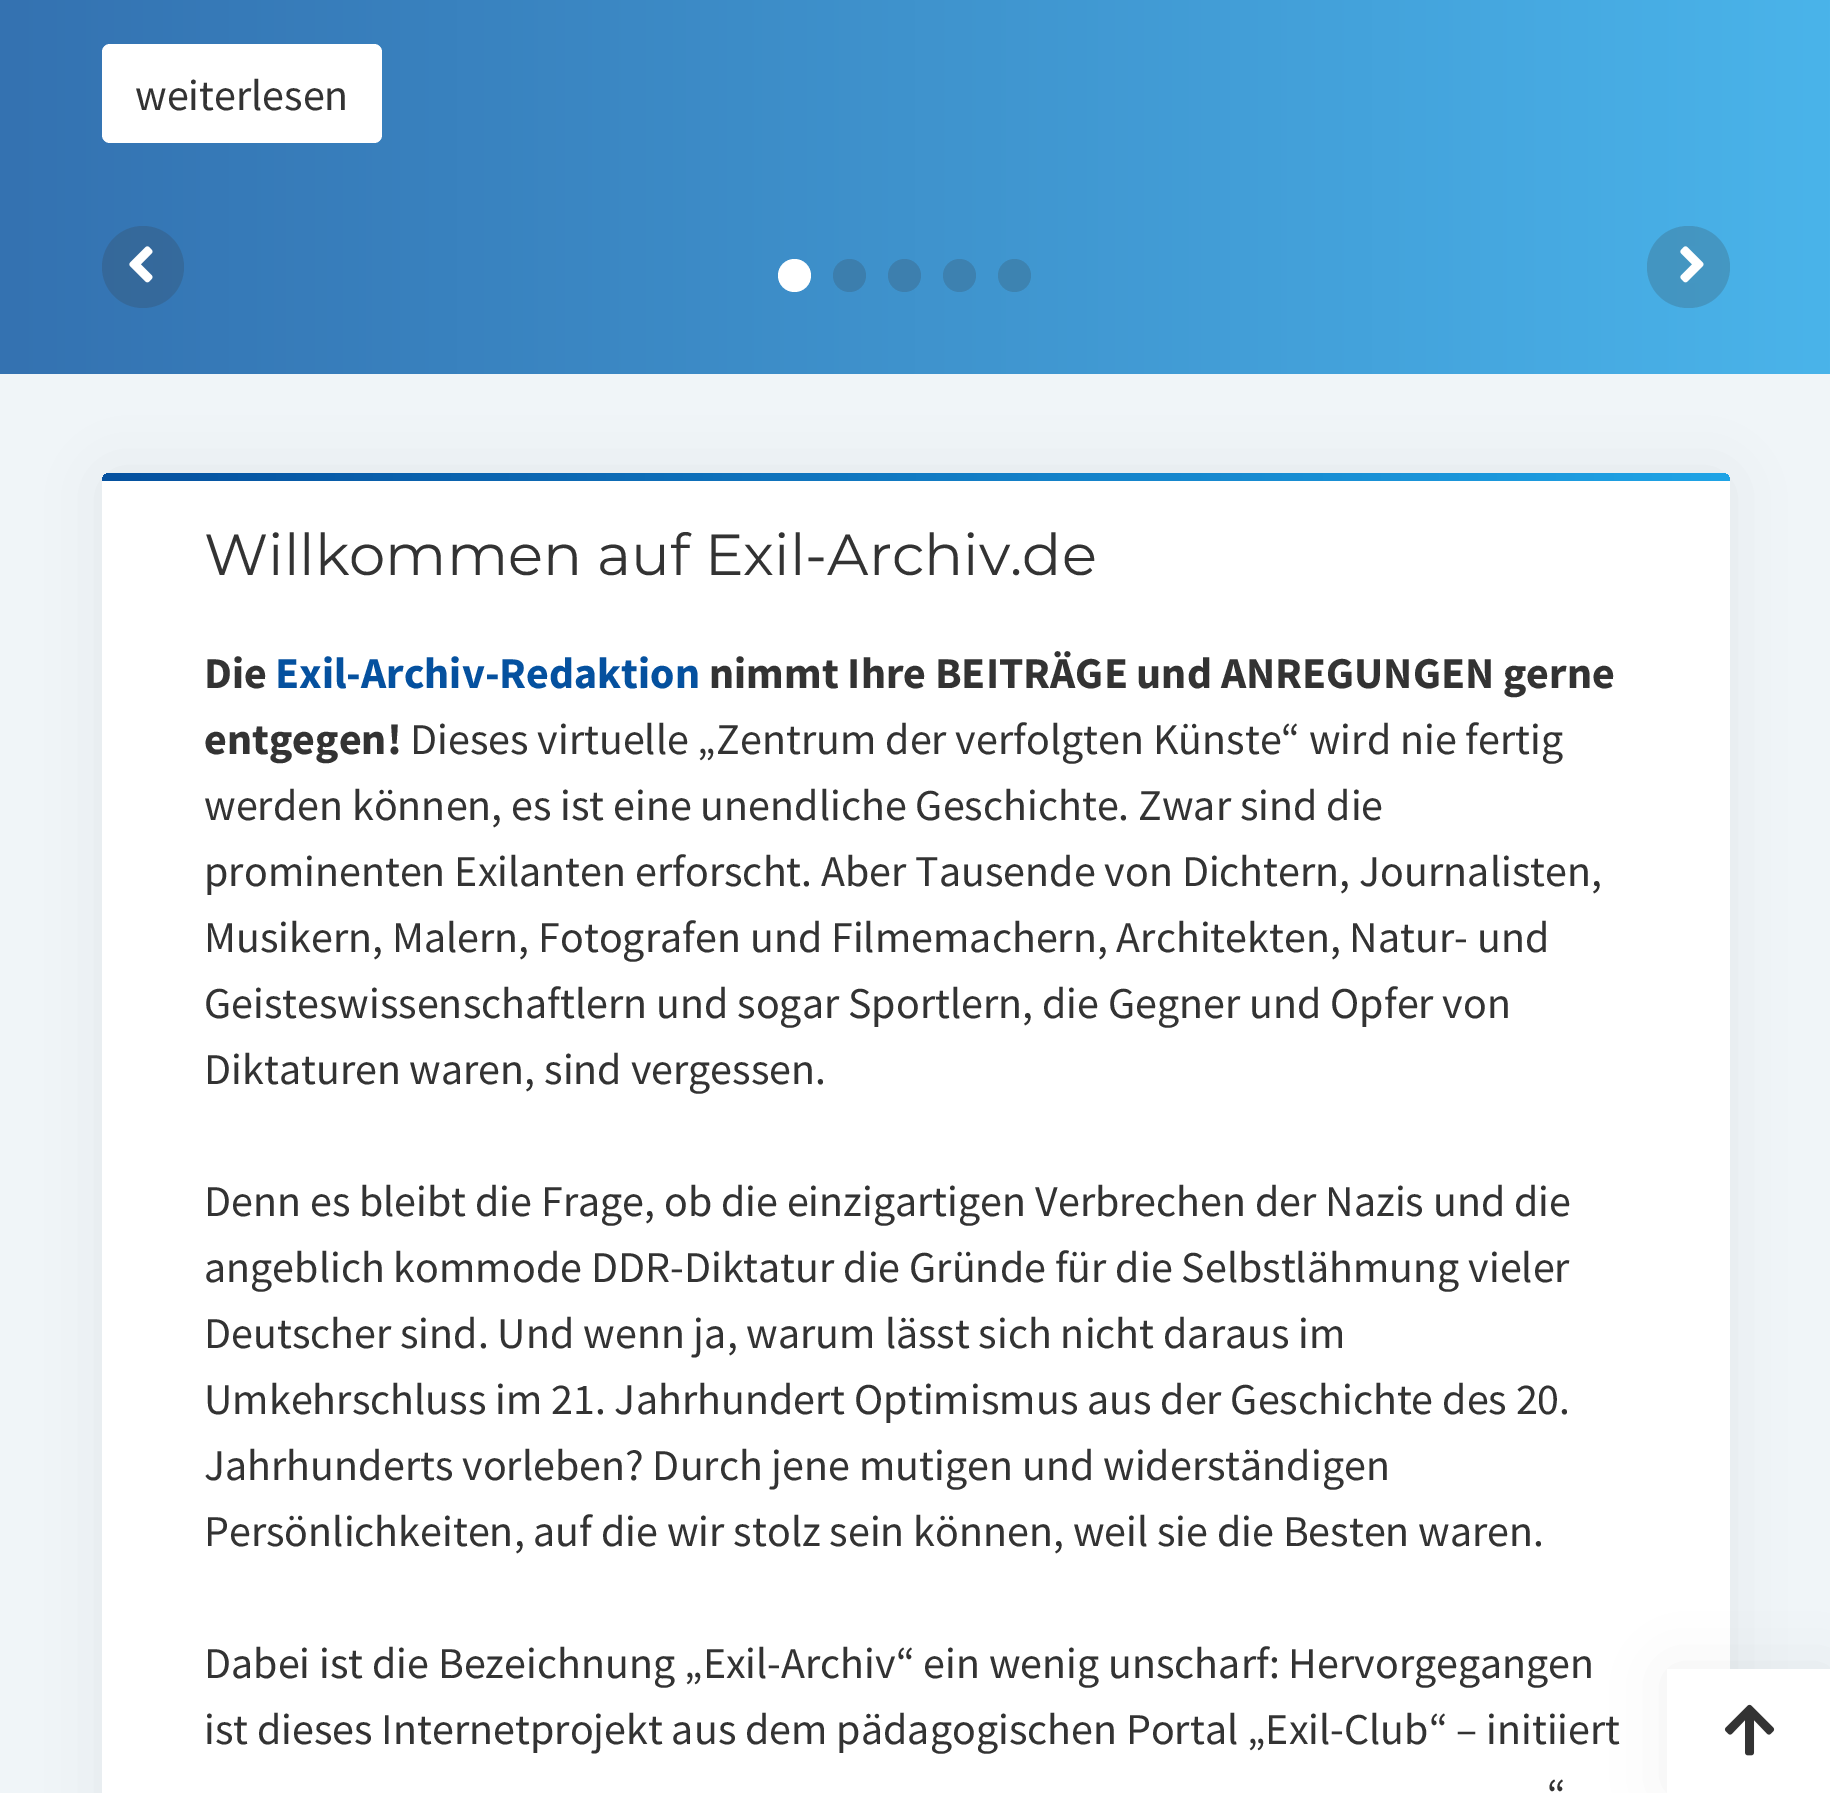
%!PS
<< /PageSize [1830 1793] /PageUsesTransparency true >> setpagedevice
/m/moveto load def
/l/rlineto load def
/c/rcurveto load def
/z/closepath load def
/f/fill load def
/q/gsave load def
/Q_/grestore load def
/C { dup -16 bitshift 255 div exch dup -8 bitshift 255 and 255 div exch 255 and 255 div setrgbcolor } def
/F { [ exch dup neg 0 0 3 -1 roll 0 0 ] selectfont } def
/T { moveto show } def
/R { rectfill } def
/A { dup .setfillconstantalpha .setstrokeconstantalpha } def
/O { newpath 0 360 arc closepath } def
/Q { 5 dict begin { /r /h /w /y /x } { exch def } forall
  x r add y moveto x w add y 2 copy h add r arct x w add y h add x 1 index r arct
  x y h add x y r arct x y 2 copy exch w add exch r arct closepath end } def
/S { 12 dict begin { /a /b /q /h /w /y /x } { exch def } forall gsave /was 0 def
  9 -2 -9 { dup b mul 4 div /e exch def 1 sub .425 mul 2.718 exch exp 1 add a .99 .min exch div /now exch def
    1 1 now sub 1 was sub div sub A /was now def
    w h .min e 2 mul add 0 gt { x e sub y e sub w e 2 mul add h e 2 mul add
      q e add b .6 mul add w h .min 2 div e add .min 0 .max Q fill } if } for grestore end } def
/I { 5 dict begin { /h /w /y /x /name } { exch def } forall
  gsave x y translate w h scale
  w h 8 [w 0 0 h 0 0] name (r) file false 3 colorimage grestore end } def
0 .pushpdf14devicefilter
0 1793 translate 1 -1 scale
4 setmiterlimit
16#F0F5F8 C
0 0 1830 1793 R
16#000000 C
102 473 1628 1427 8 33 .05 S
q 0 0 m 1830 0 l 0 374 l -1830 0 l z clip newpath
<< /ShadingType 2 /ColorSpace /DeviceRGB /Coords [0 -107 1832 -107] /Extend [true true] /Function << /FunctionType 2 /Domain [0 1] /C0 [.204 .447 .694] /C1 [.29 .706 .918] /N 1 >> >> shfill Q_
16#FFFFFF C
102 44 280 99 8 Q f
/SourceSansPro-Regular 44 F
16#333333 C
(weiterlesen) 135 110 T
0.2 A
143 267 41 O f
1 A
(1.rgb) 129 246 24 37 I
0.2 A
1647 226 83 82 41 Q f
1 A
(2.rgb) 1680 246 24 37 I
16#FFFFFF C
794.5 275.5 16.5 O f
16#3C7EAD C
849.5 275.5 16.5 O f
16#3D7FAE C
904.5 275.5 16.5 O f
16#3D81B0 C
959.5 275.5 16.5 O f
16#3D83B1 C
1014.5 275.5 16.5 O f
16#FFFFFF C
102 473 1628 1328 8 Q f
q 110 473 m 1612 0 l 4.5 0 8 3.5 8 8 c -1628 0 l 0 -4.5 3.5 -8 8 -8 c z clip newpath
<< /ShadingType 2 /ColorSpace /DeviceRGB /Coords [102 477 1730 477] /Extend [true true] /Function << /FunctionType 2 /Domain [0 1] /C0 [.02 .318 .624] /C1 [.125 .643 .902] /N 1 >> >> shfill Q_
/Montserrat-Thin 57.75 F
16#333333 C
(Willkommen auf Exil-Archiv.de) 204 575 T
/SourceSansPro-Bold 44 F
(Die) 204 688 T
16#05519F C
(Exil-Archiv-Redaktion) 275 688 T
16#333333 C
(nimmt Ihre BEITRÄGE und ANREGUNGEN gerne) 709 688 T
(entgegen!) 204 754 T
/SourceSansPro-Regular 44 F
(Dieses virtuelle „Zentrum der verfolgten Künste“ wird nie fertig) 410 754 T
(werden können, es ist eine unendliche Geschichte. Zwar sind die) 204 820 T
(prominenten Exilanten erforscht. Aber Tausende von Dichtern, Journalisten,) 204 886 T
(Musikern, Malern, Fotografen und Filmemachern, Architekten, Natur- und) 204 952 T
(Geisteswissenschaftlern und sogar Sportlern, die Gegner und Opfer von) 204 1018 T
(Diktaturen waren, sind vergessen.) 204 1084 T
(Denn es bleibt die Frage, ob die einzigartigen Verbrechen der Nazis und die) 204 1216 T
(angeblich kommode DDR-Diktatur die Gründe für die Selbstlähmung vieler) 204 1282 T
(Deutscher sind. Und wenn ja, warum lässt sich nicht daraus im) 204 1348 T
(Umkehrschluss im 21. Jahrhundert Optimismus aus der Geschichte des 20.) 204 1414 T
(Jahrhunderts vorleben? Durch jene mutigen und widerständigen) 204 1480 T
(Persönlichkeiten, auf die wir stolz sein können, weil sie die Besten waren.) 204 1546 T
(Dabei ist die Bezeichnung „Exil-Archiv“ ein wenig unscharf: Hervorgegangen) 204 1678 T
(ist dieses Internetprojekt aus dem pädagogischen Portal „Exil-Club“ – initiiert) 204 1744 T
(“) 1547 1810 T
16#000000 C
1667 1669 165 124 0 33 .05 S
16#FFFFFF C
1667 1669 163 124 R
(3.rgb) 1724 1704 51 52 I
.poppdf14devicefilter showpage
